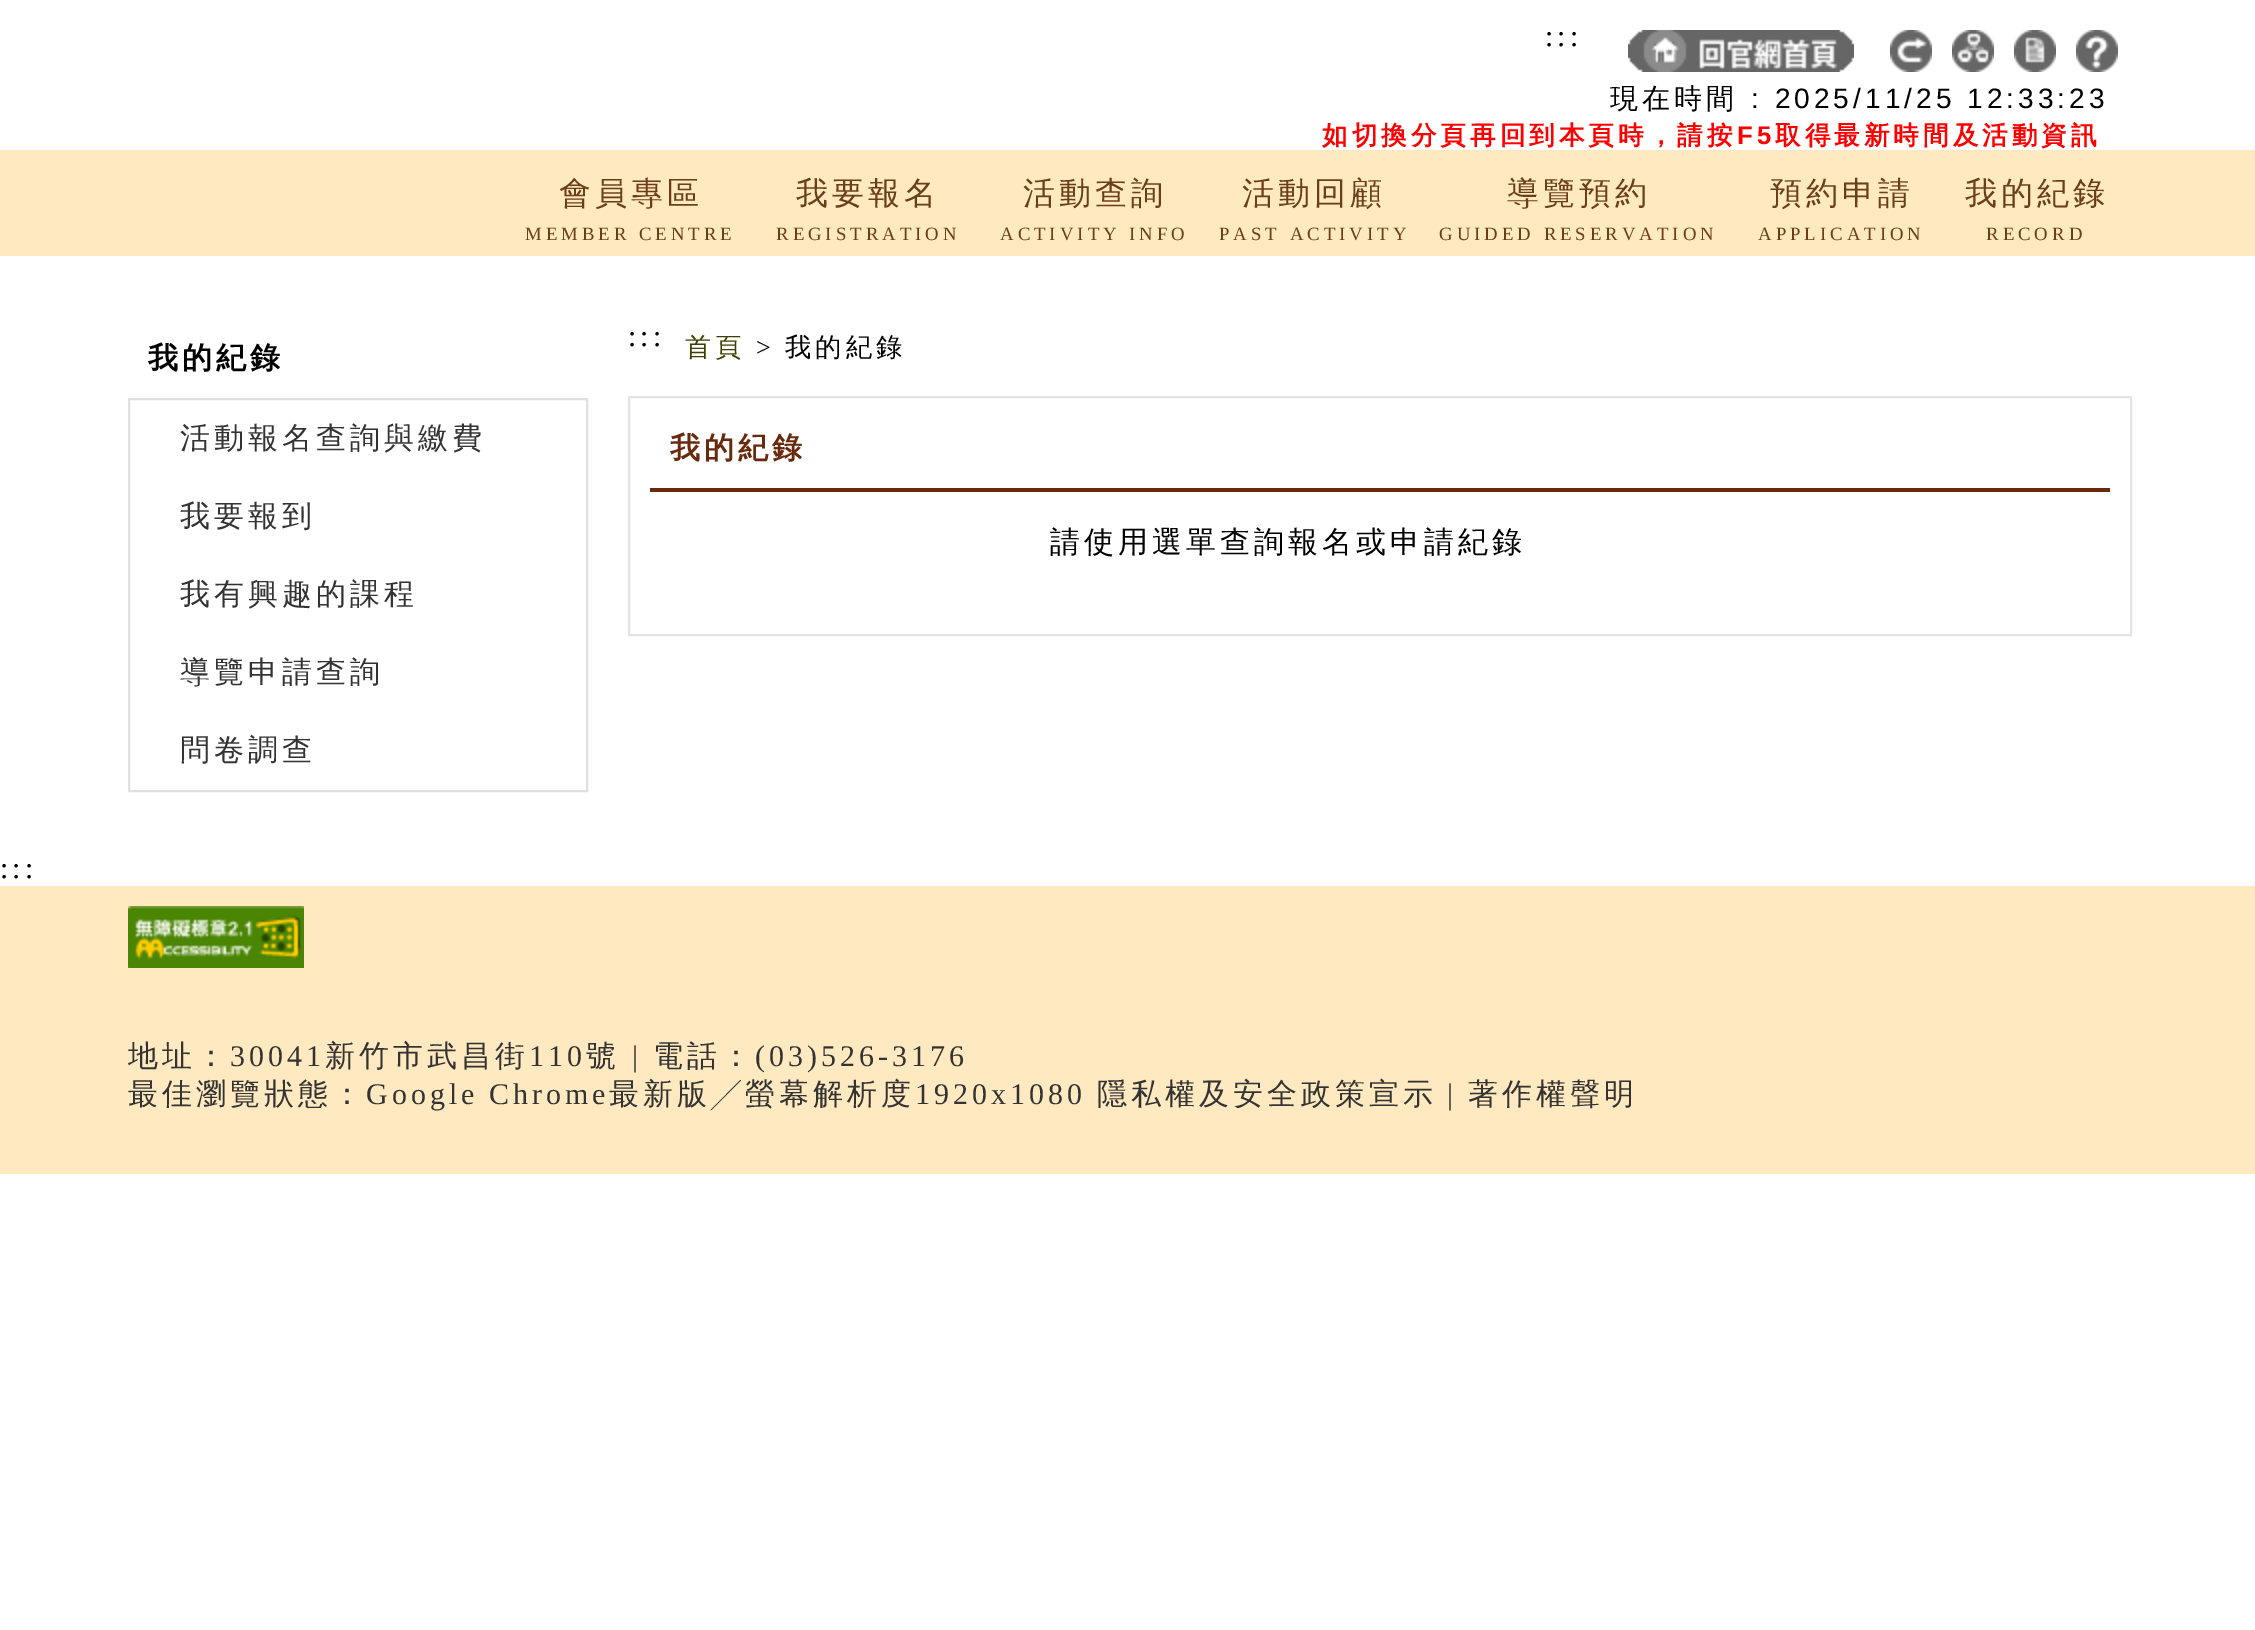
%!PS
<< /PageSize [2255 1630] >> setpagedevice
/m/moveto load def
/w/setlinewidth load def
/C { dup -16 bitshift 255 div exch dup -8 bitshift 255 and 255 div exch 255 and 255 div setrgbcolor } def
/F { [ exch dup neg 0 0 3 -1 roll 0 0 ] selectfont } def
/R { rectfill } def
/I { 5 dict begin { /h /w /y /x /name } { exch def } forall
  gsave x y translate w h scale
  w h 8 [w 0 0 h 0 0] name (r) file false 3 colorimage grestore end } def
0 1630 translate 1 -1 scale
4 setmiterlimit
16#FFFFFF C
0 0 2255 1630 R
16#FFE9C0 C
0 150 2255 106 R
/LiberationSerif-Regular 30 F
16#000000 C
1545 46 m 4 0 (:::) ashow
(1.rgb) 1628 30 226 42 I
(2.rgb) 1890 30 42 42 I
(3.rgb) 1952 30 42 42 I
(4.rgb) 2014 30 42 42 I
(5.rgb) 2076 30 42 42 I
/WenQuanYiZenHei-Medium 28.1 F
1610 108 m 4 0 (現在時間) ashow
/LiberationSans-Regular 28.1 F
1751 108 m 4 0 (: 2025/11/25 12:33:23) ashow
/WenQuanYiZenHei-Bold 25.6 F
16#FF0000 C
1322 144 m 4 0 (如切換分頁再回到本頁時，請按) ashow
/LiberationSans-Bold 25.6 F
1737 144 m 4 0 (F5) ashow
/WenQuanYiZenHei-Bold 25.6 F
1775 144 m 4 0 (取得最新時間及活動資訊) ashow
/WenQuanYiZenHei-Medium 32 F
16#6B3E18 C
559 204 m 4 0 (會員專區) ashow
/LiberationSerif-Regular 18.75 F
525 240 m 4 0 (MEMBER CENTRE) ashow
/WenQuanYiZenHei-Medium 32 F
796 204 m 4 0 (我要報名) ashow
/LiberationSerif-Regular 18.75 F
776 240 m 4 0 (REGISTRATION) ashow
/WenQuanYiZenHei-Medium 32 F
1023 204 m 4 0 (活動查詢) ashow
/LiberationSerif-Regular 18.75 F
1000 240 m 4 0 (ACTIVITY INFO) ashow
/WenQuanYiZenHei-Medium 32 F
1242 204 m 4 0 (活動回顧) ashow
/LiberationSerif-Regular 18.75 F
1219 240 m 4 0 (PAST ACTIVITY) ashow
/WenQuanYiZenHei-Medium 32 F
1507 204 m 4 0 (導覽預約) ashow
/LiberationSerif-Regular 18.75 F
1439 240 m 4 0 (GUIDED RESERVATION) ashow
/WenQuanYiZenHei-Medium 32 F
1770 204 m 4 0 (預約申請) ashow
/LiberationSerif-Regular 18.75 F
1758 240 m 4 0 (APPLICATION) ashow
/WenQuanYiZenHei-Medium 32 F
1965 204 m 4 0 (我的紀錄) ashow
/LiberationSerif-Regular 18.75 F
1986 240 m 4 0 (RECORD) ashow
/WenQuanYiZenHei-Bold 30 F
16#000000 C
148 368 m 4 0 (我的紀錄) ashow
16#E0E0E0 C
2 w
129 399 458 392 rectstroke
/WenQuanYiZenHei-Medium 30 F
16#333333 C
180 448 m 4 0 (活動報名查詢與繳費) ashow
180 526 m 4 0 (我要報到) ashow
180 604 m 4 0 (我有興趣的課程) ashow
180 682 m 4 0 (導覽申請查詢) ashow
180 760 m 4 0 (問卷調查) ashow
/LiberationSerif-Regular 30 F
16#000000 C
628 346 m 4 0 (:::) ashow
/WenQuanYiZenHei-Medium 26.25 F
16#3E3E00 C
685 356 m 4 0 (首頁) ashow
/LiberationSerif-Regular 26.25 F
16#000000 C
756 356 m 4 0 (>) ashow
/WenQuanYiZenHei-Medium 26.25 F
785 356 m 4 0 (我的紀錄) ashow
16#E3E3E3 C
629 397 1502 238 rectstroke
16#69290D C
650 488 1460 4 R
/WenQuanYiZenHei-Bold 30 F
670 458 m 4 0 (我的紀錄) ashow
/WenQuanYiZenHei-Medium 30 F
16#000000 C
1050 552 m 4 0 (請使用選單查詢報名或申請紀錄) ashow
/LiberationSerif-Regular 30 F
0 878 m 4 0 (:::) ashow
16#FFE9C0 C
0 886 2255 288 R
(6.rgb) 128 906 176 62 I
/WenQuanYiZenHei-Medium 30 F
16#333333 C
128 1066 m 4 0 (地址：) ashow
/LiberationSerif-Regular 30 F
230 1066 m 4 0 (30041) ashow
/WenQuanYiZenHei-Medium 30 F
325 1066 m 4 0 (新竹市武昌街) ashow
/LiberationSerif-Regular 30 F
529 1066 m 4 0 (110) ashow
/WenQuanYiZenHei-Medium 30 F
586 1066 m 4 0 (號) ashow
/LiberationSerif-Regular 30 F
632 1066 m 4 0 (|) ashow
/WenQuanYiZenHei-Medium 30 F
653 1066 m 4 0 (電話：) ashow
/LiberationSerif-Regular 30 F
755 1066 m 4 0 (\(03\)526-3176) ashow
/WenQuanYiZenHei-Medium 30 F
128 1104 m 4 0 (最佳瀏覽狀態：) ashow
/LiberationSerif-Regular 30 F
366 1104 m -1 0 32 4 0 (Google Chrome) awidthshow
/WenQuanYiZenHei-Medium 30 F
609 1104 m 4 0 (最新版╱螢幕解析度) ashow
/LiberationSerif-Regular 30 F
915 1104 m 4 0 (1920x1080) ashow
/WenQuanYiZenHei-Medium 30 F
1097 1104 m 4 0 (隱私權及安全政策宣示) ashow
/LiberationSerif-Regular 30 F
1447 1104 m 4 0 (|) ashow
/WenQuanYiZenHei-Medium 30 F
1468 1104 m 4 0 (著作權聲明) ashow
showpage
